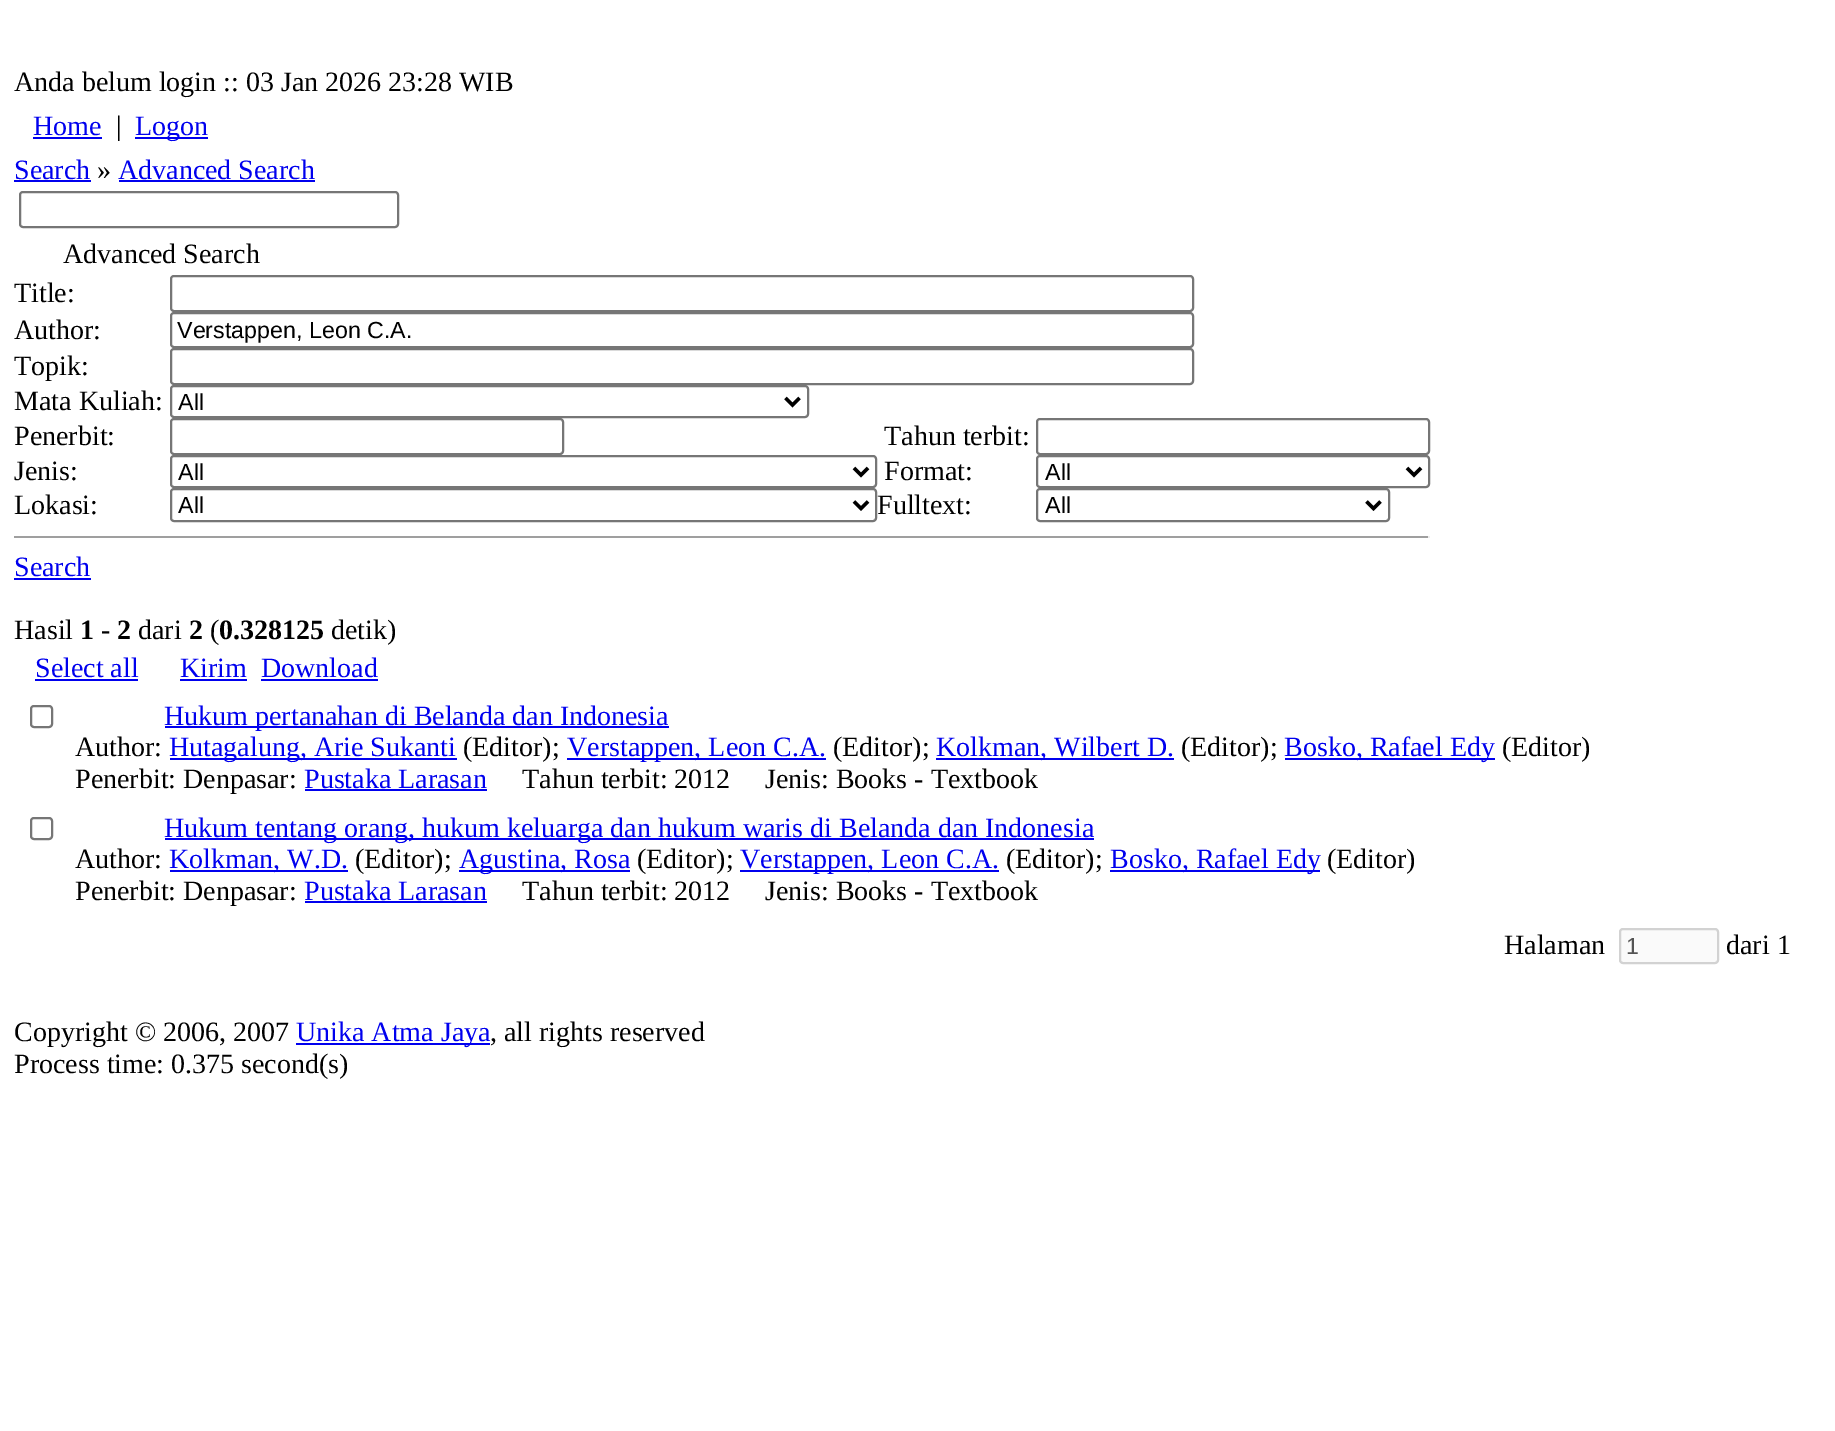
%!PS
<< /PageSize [1835 1431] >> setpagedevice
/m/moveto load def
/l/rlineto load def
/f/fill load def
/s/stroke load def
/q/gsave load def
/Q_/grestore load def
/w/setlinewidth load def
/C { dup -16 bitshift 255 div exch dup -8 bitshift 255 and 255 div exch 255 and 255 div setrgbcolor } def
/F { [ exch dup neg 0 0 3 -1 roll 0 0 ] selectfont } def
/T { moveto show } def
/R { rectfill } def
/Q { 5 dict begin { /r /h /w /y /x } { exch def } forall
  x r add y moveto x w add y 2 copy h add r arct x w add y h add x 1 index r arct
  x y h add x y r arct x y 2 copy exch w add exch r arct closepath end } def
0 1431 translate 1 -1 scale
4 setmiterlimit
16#FFFFFF C
0 0 1835 1431 R
/LiberationSerif-Regular 28 F
16#000000 C
(Anda belum login :: 03 Jan 2026 23:28 WIB) 14 91 T
16#0000EE C
(Home) 33 135 T
33 137 69 2 R
16#000000 C
(|) 116 135 T
16#0000EE C
135 137 73 2 R
(Logon) 135 135 T
(Search) 14 179 T
14 180 77 2 R
16#000000 C
(») 97 179 T
16#0000EE C
(Advanced Search) 118 179 T
119 180 196 2 R
16#767676 C
2 w
20 192 378 35 3 Q s
16#000000 C
(Advanced Search) 63 263 T
(Title:) 14 302 T
16#767676 C
171 276 1022 35 3 Q s
16#000000 C
(Author:) 14 339 T
16#767676 C
171 313 1022 34 3 Q s
/LiberationSans-Regular 23.25 F
16#000000 C
(Verstappen, Leon C.A.) 177 338 T
/LiberationSerif-Regular 28 F
(Topik:) 14 375 T
16#767676 C
171 349 1022 35 3 Q s
16#000000 C
(Mata Kuliah:) 14 410 T
16#767676 C
171 386 637 31 3 Q s
16#000000 C
3.5 w
785.5 398 m 7 7 l 7 -7 l s
/LiberationSans-Regular 23.25 F
(All) 178 410 T
/LiberationSerif-Regular 28 F
(Penerbit:) 14 445 T
16#767676 C
2 w
171 419 392 35 3 Q s
16#000000 C
(Tahun terbit:) 884 445 T
16#767676 C
1037 419 392 35 3 Q s
16#000000 C
(Jenis:) 14 480 T
16#767676 C
171 456 705 31 3 Q s
16#000000 C
3.5 w
854 468 m 7 7 l 7 -7 l s
/LiberationSans-Regular 23.25 F
(All) 178 480 T
/LiberationSerif-Regular 28 F
(Format:) 884 480 T
16#767676 C
2 w
1037 456 392 31 3 Q s
16#000000 C
3.5 w
1407 468 m 7 7 l 7 -7 l s
/LiberationSans-Regular 23.25 F
(All) 1045 480 T
/LiberationSerif-Regular 28 F
(Lokasi:) 14 514 T
16#767676 C
2 w
171 489 705 32 3 Q s
16#000000 C
3.5 w
854 501.5 m 7 7 l 7 -7 l s
/LiberationSans-Regular 23.25 F
(All) 178 513 T
/LiberationSerif-Regular 28 F
(Fulltext:) 877 514 T
16#767676 C
2 w
1037 489 352 32 3 Q s
16#000000 C
3.5 w
1366.5 501.5 m 7 7 l 7 -7 l s
/LiberationSans-Regular 23.25 F
(All) 1045 513 T
16#9F9F9F C
14 536 1416 2 R
16#EEEEEE C
1428 536 2 2 R
/LiberationSerif-Regular 28 F
16#0000EE C
(Search) 14 576 T
14 578 77 2 R
16#000000 C
(Hasil) 14 639 T
/LiberationSerif-Bold 28 F
(1) 80 639 T
/LiberationSerif-Regular 28 F
(-) 101 639 T
/LiberationSerif-Bold 28 F
(2) 117 639 T
/LiberationSerif-Regular 28 F
(dari) 138 639 T
/LiberationSerif-Bold 28 F
(2) 189 639 T
/LiberationSerif-Regular 28 F
(\() 210 639 T
/LiberationSerif-Bold 28 F
(0.328125) 219 639 T
/LiberationSerif-Regular 28 F
(detik\)) 331 639 T
16#0000EE C
(Select all) 35 677 T
35 679 103 2 R
(Kirim) 180 677 T
180 679 67 2 R
(Download) 261 677 T
261 679 117 2 R
16#767676 C
2 w
31 706 21 21 3 Q s
16#0000EE C
165 726 504 2 R
(Hukum pertanahan di Belanda dan Indonesia) 164 725 T
16#000000 C
(Author:) 75 756 T
16#0000EE C
170 758 287 2 R
(Hutagalung, Arie Sukanti) 169 756 T
16#000000 C
(\(Editor\);) 463 756 T
16#0000EE C
567 758 259 2 R
(Verstappen, Leon C.A.) 567 756 T
16#000000 C
(\(Editor\);) 833 756 T
16#0000EE C
936 758 238 2 R
(Kolkman, Wilbert D.) 936 756 T
16#000000 C
(\(Editor\);) 1181 756 T
16#0000EE C
1285 758 210 2 R
(Bosko, Rafael Edy) 1284 756 T
16#000000 C
(\(Editor\)) 1502 756 T
(Penerbit: Denpasar:) 75 788 T
16#0000EE C
(Pustaka Larasan) 304 788 T
305 789 182 2 R
16#000000 C
(Tahun terbit: 2012) 522 788 T
(Jenis: Books - Textbook) 765 788 T
16#767676 C
31 818 21 21 3 Q s
16#0000EE C
165 838 929 2 R
(Hukum tentang orang, hukum keluarga dan hukum waris di Belanda dan Indonesia) 164 837 T
16#000000 C
(Author:) 75 868 T
16#0000EE C
170 870 178 2 R
(Kolkman, W.D.) 169 868 T
16#000000 C
(\(Editor\);) 355 868 T
16#0000EE C
459 870 171 2 R
(Agustina, Rosa) 459 868 T
16#000000 C
(\(Editor\);) 637 868 T
16#0000EE C
740 870 259 2 R
(Verstappen, Leon C.A.) 740 868 T
16#000000 C
(\(Editor\);) 1006 868 T
16#0000EE C
1110 870 210 2 R
(Bosko, Rafael Edy) 1110 868 T
16#000000 C
(\(Editor\)) 1327 868 T
(Penerbit: Denpasar:) 75 900 T
16#0000EE C
(Pustaka Larasan) 304 900 T
305 901 182 2 R
16#000000 C
(Tahun terbit: 2012) 522 900 T
(Jenis: Books - Textbook) 765 900 T
(Halaman) 1504 954 T
16#FAFAFA C
1620 929 98 34 3 Q q f Q_
16#D2D2D2 C
s
/LiberationSans-Regular 23.25 F
16#545454 C
(1) 1626 954 T
/LiberationSerif-Regular 28 F
16#000000 C
(dari 1) 1726 954 T
(Copyright © 2006, 2007) 14 1041 T
16#0000EE C
296 1043 194 2 R
(Unika Atma Jaya) 296 1041 T
16#000000 C
(, all rights reserved) 490 1041 T
(Process time: 0.375 second\(s\)) 14 1073 T
showpage
